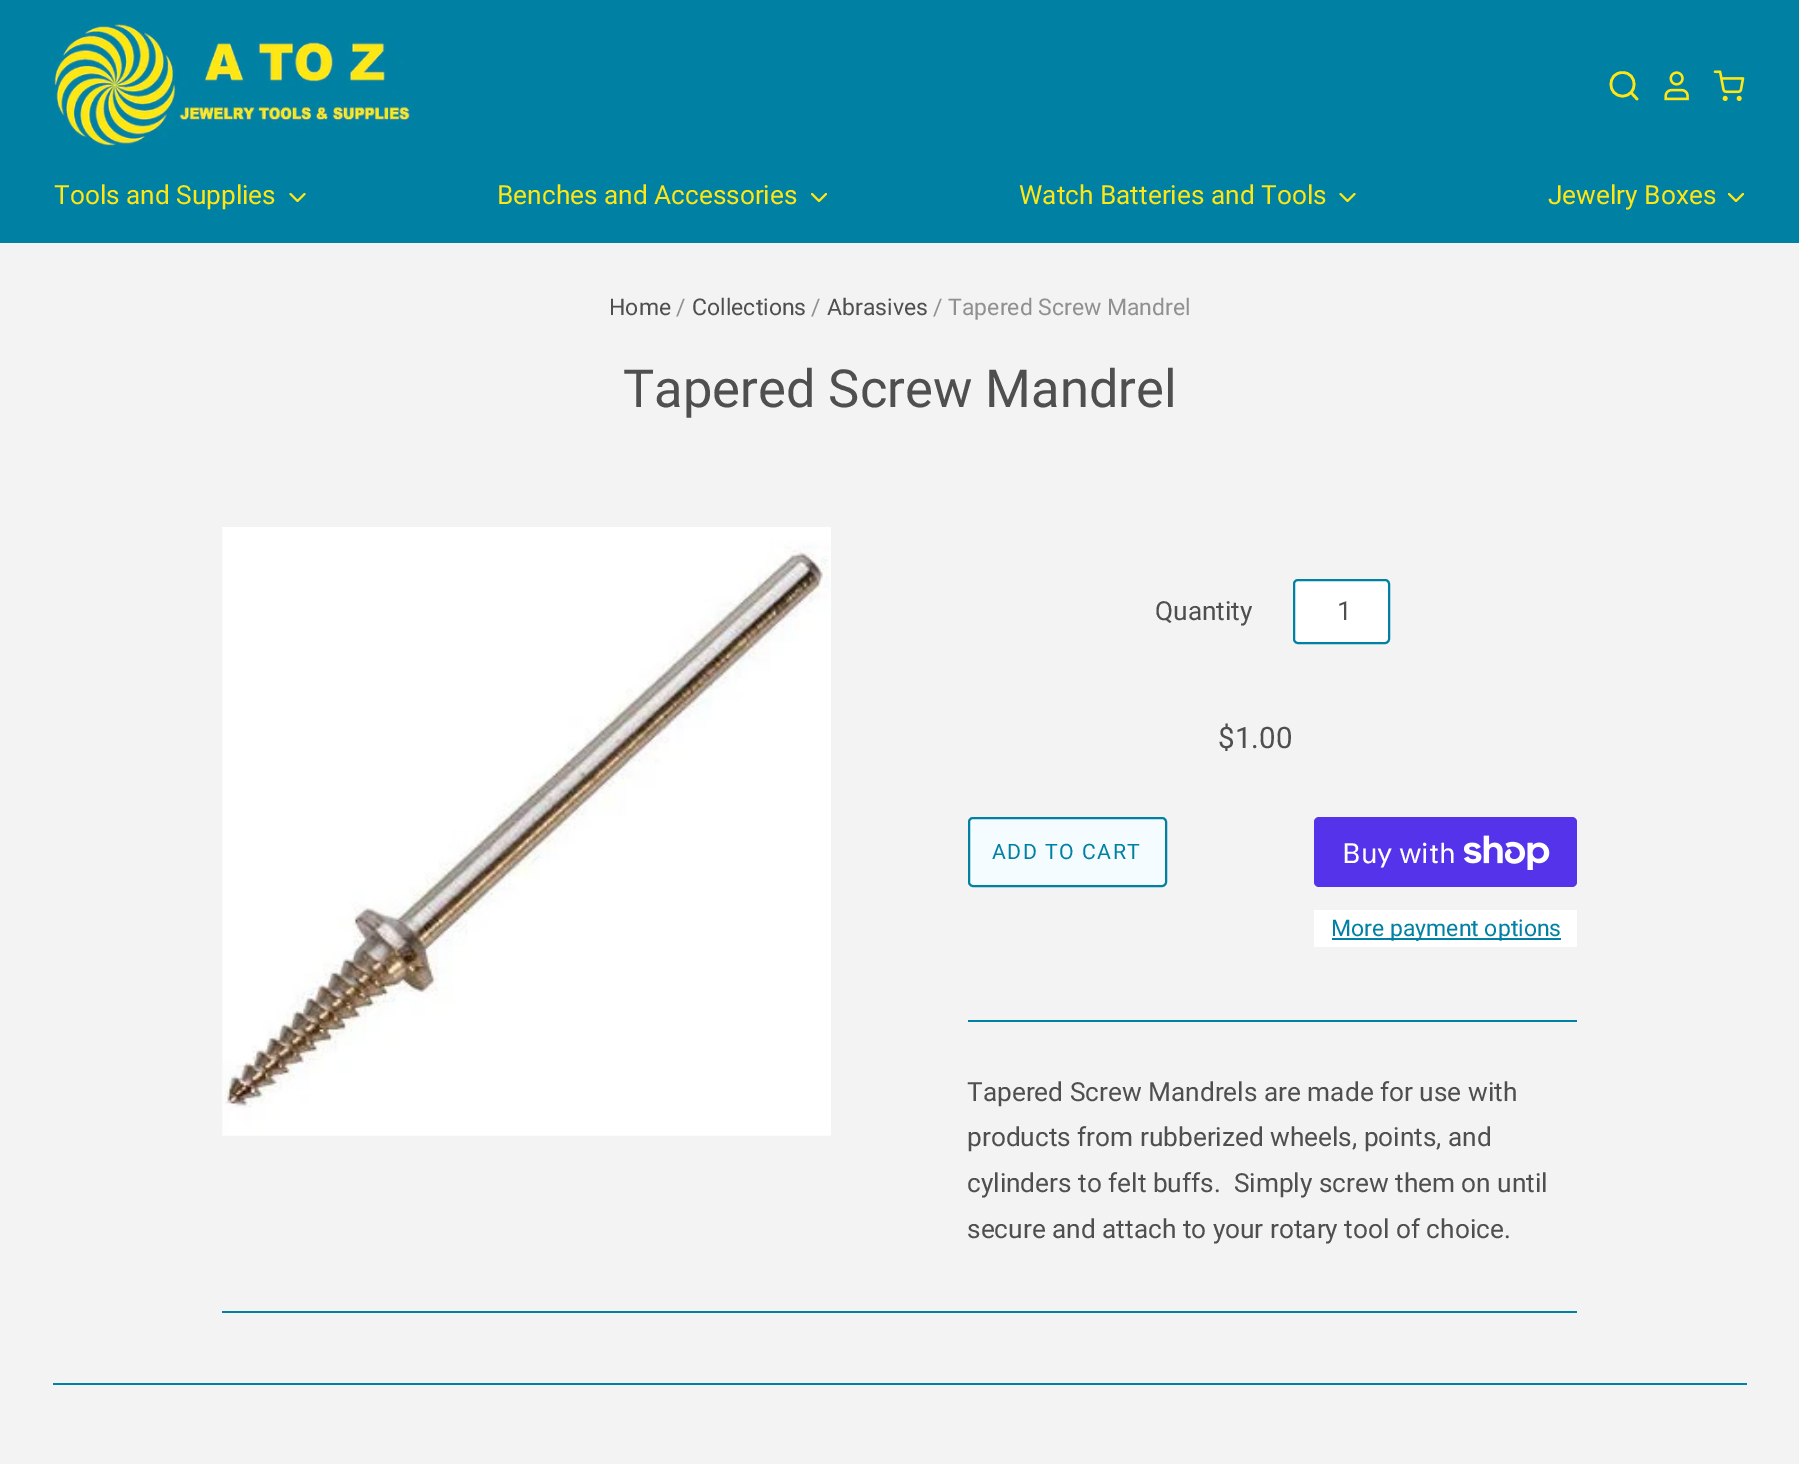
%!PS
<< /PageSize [1799 1464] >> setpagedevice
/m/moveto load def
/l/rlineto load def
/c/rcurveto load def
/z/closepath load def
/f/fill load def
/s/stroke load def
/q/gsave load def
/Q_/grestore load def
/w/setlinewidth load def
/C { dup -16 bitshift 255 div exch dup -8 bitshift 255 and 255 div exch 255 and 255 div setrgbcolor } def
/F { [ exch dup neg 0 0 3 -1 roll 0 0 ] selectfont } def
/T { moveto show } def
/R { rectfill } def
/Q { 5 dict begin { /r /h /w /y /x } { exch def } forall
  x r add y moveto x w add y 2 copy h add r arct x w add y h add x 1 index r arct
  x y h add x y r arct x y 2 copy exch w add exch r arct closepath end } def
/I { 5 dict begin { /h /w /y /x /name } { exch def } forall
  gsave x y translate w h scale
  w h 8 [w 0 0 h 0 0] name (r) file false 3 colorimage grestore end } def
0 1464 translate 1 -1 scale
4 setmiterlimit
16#F3F3F3 C
0 0 1799 1464 R
16#0081A3 C
0 0 1799 243 R
(1.rgb) 52 22 360 125 I
16#FFE716 C
2.6 w
1 setlinecap
1 setlinejoin
1622.5 72.5 m -15.5 0 -15.5 23.5 0 23.5 c 15.5 0 15.5 -23.5 0 -23.5 c z 1637 99 m -6 -6.5 l z s
(2.rgb) 1664 71 25 30 I
(3.rgb) 1713 70 32 31 I
/Roboto-Regular 26.25 F
(Tools and Supplies) 54 204 T
2.1 w
290.5 194 m 7 7 l 7 -7 l s
(Benches and Accessories) 497 204 T
812 194 m 7 7 l 7 -7 l s
(Watch Batteries and Tools) 1019 204 T
1340.5 194 m 7 7 l 7 -7 l s
(Jewelry Boxes) 1548 204 T
1729 194 m 7 7 l 7 -7 l s
/Roboto-Regular 23 F
16#4F4F4F C
(Home) 609 315 T
16#909090 C
(/) 676 315 T
16#4F4F4F C
(Collections) 692 315 T
16#909090 C
(/) 811 315 T
16#4F4F4F C
(Abrasives) 827 315 T
16#909090 C
(/ Tapered Screw Mandrel) 933 315 T
/Roboto-Regular 52.5 F
16#4F4F4F C
(Tapered Screw Mandrel) 623 407 T
(4.rgb) 222 527 609 609 I
/Roboto-Regular 26.25 F
(Quantity) 1155 620 T
16#FFFFFF C
1294 580 95 63 4 Q q f Q_
16#0081A3 C
2 w
0 setlinecap
0 setlinejoin
s
16#4F4F4F C
(1) 1337 620 T
/Roboto-Regular 29.5 F
($1.00) 1218 748 T
16#F5FCFF C
969 818 197 68 4 Q q f Q_
16#0081A3 C
s
/Roboto-Regular 21.25 F
992 859 m 1.5 0 (ADD TO CART) ashow
16#5433EB C
1314 817 263 70 5 Q f
/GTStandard-Regular 28 F
16#FFFFFF C
(Buy with) 1342 863 T
(5.rgb) 1464 835 86 35 I
1314 910 263 37 R
16#0081A3 C
1332 938 229 2 R
/Roboto-Regular 23 F
(More payment options) 1331 936 T
968 1020 609 2 R
/Roboto-Regular 26.25 F
16#4F4F4F C
(Tapered Screw Mandrels are made for use with) 967 1101 T
(products from rubberized wheels, points, and) 967 1146 T
(cylinders to felt buffs.  Simply screw them on until) 967 1192 T
(secure and attach to your rotary tool of choice.) 967 1238 T
16#0081A3 C
222 1311 1355 2 R
53 1383 1694 2 R
showpage
